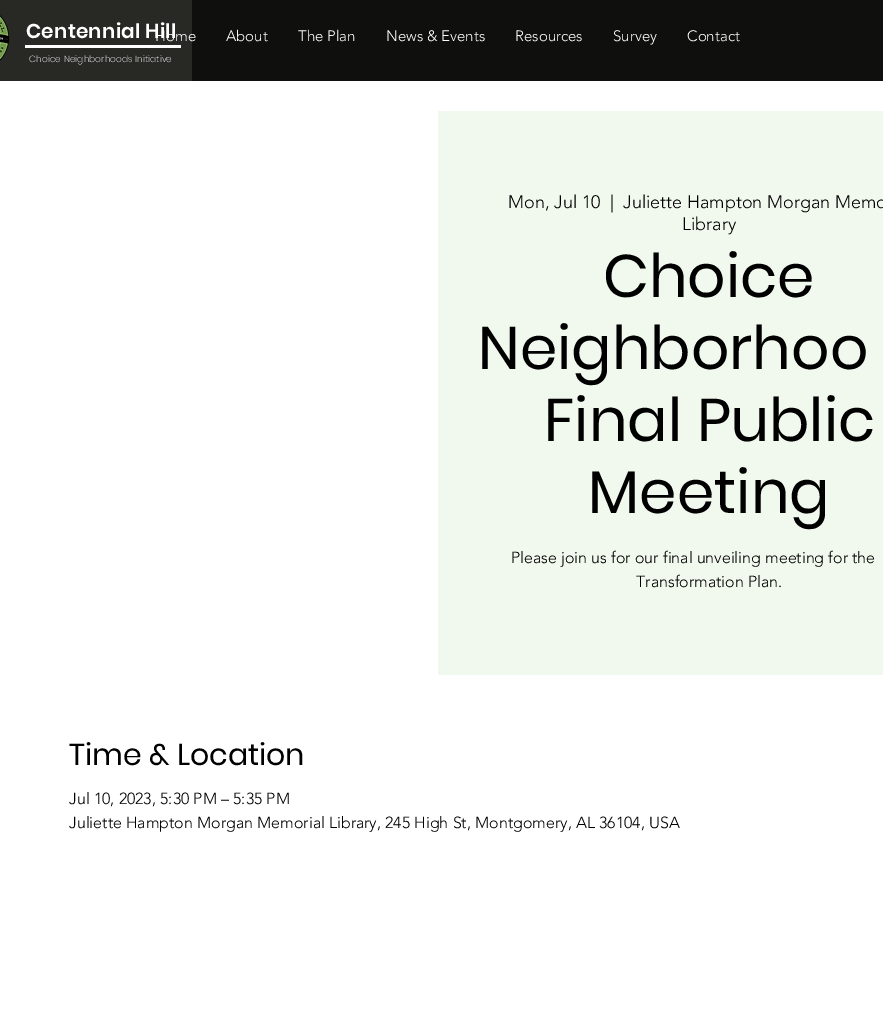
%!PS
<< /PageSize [883 1014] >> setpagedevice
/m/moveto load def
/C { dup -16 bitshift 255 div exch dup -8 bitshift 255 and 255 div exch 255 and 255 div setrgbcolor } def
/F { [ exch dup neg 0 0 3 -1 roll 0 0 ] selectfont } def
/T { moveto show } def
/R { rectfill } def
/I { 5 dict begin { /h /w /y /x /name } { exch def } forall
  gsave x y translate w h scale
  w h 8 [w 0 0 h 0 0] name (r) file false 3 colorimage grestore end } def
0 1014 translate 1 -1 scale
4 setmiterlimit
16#FFFFFF C
0 0 883 1014 R
16#282825 C
0 0 192 81 R
(1.rgb) 0 15 10 46 I
/Poppins-SemiBold 20 F
16#FFFFFF C
26 38 m .25 0 (Centennial Hill) ashow
25 45 156 3 R
/Poppins-ExtraLight 9 F
29 62 m .1 0 (Choice Neighborhoods Initiative) ashow
16#0F0F0E C
192 0 691 81 R
/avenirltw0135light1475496-Light 15 F
16#FFFFFF C
(Home) 155 41 T
(About) 226 41 T
(The Plan) 298 41 T
(News & Events) 386 41 T
(Resources) 515 41 T
(Survey) 613 41 T
(Contact) 687 41 T
16#F1F9EE C
438 111 445 564 R
/avenirltw0135light1475496-Light 18 F
16#000000 C
(Mon, Jul 10) 508 208 T
(|) 610 208 T
(Juliette Hampton Morgan Memo) 623 208 T
(Library) 682 230 T
/Poppins-Regular 60 F
(Choice) 603 297 T
(Neighborhoo) 478 369 T
(Final Public) 544 441 T
(Meeting) 588 513 T
/avenirltw0135light1475496-Light 16 F
(Please join us for our final unveiling meeting for the) 511 563 T
(Transformation Plan.) 636 587 T
/Poppins-Regular 30 F
(Time & Location) 69 765 T
/avenirltw0135light1475496-Light 16 F
(Jul 10, 2023, 5:30 PM – 5:35 PM) 69 804 T
(Juliette Hampton Morgan Memorial Library, 245 High St, Montgomery, AL 36104, USA) 69 828 T
showpage
